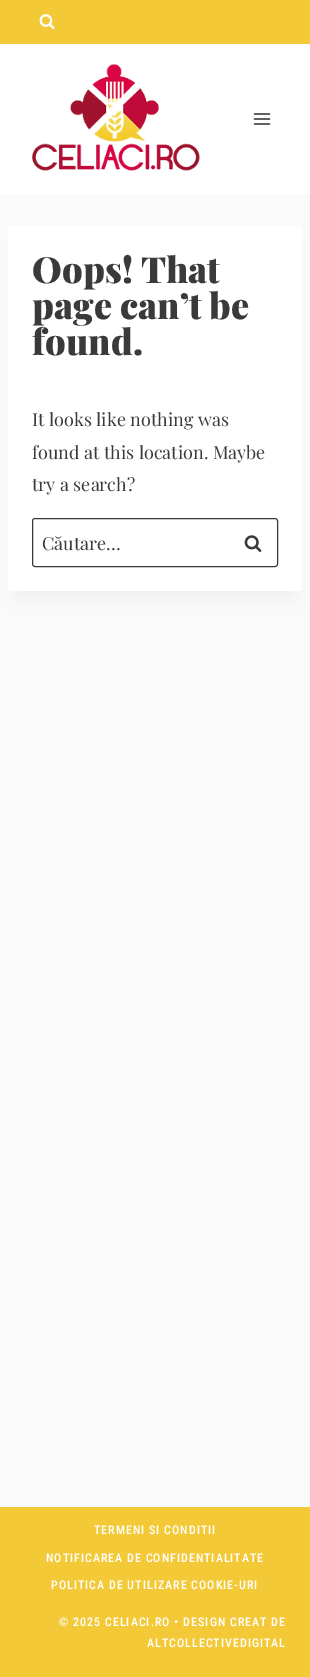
%!PS
<< /PageSize [310 1677] /PageUsesTransparency true >> setpagedevice
/m/moveto load def
/f/fill load def
/s/stroke load def
/C { dup -16 bitshift 255 div exch dup -8 bitshift 255 and 255 div exch 255 and 255 div setrgbcolor } def
/F { [ exch dup neg 0 0 3 -1 roll 0 0 ] selectfont } def
/T { moveto show } def
/R { rectfill } def
/A { dup .setfillconstantalpha .setstrokeconstantalpha } def
/Q { 5 dict begin { /r /h /w /y /x } { exch def } forall
  x r add y moveto x w add y 2 copy h add r arct x w add y h add x 1 index r arct
  x y h add x y r arct x y 2 copy exch w add exch r arct closepath end } def
/S { 12 dict begin { /a /b /q /h /w /y /x } { exch def } forall gsave /was 0 def
  9 -2 -9 { dup b mul 4 div /e exch def 1 sub .425 mul 2.718 exch exp 1 add a .99 .min exch div /now exch def
    1 1 now sub 1 was sub div sub A /was now def
    w h .min e 2 mul add 0 gt { x e sub y e sub w e 2 mul add h e 2 mul add
      q e add b .6 mul add w h .min 2 div e add .min 0 .max Q fill } if } for grestore end } def
/I { 5 dict begin { /h /w /y /x /name } { exch def } forall
  gsave x y translate w h scale
  w h 8 [w 0 0 h 0 0] name (r) file false 3 colorimage grestore end } def
0 .pushpdf14devicefilter
0 1677 translate 1 -1 scale
4 setmiterlimit
16#FAFAFA C
0 0 310 1677 R
16#FFFFFF C
0 44 310 150 R
16#F3C937 C
0 0 310 44 R
(1.rgb) 39 14 16 15 I
(2.rgb) 32 64 168 107 I
(3.rgb) 253 113 18 12 I
16#000000 C
18 251 274 345 0 12.5 .05 S
16#FFFFFF C
8 226 294 365 4 Q f
/PlayfairDisplay-Black 36 F
16#3A3A3A C
(Oops! That) 32 283 T
(page can’t be) 32 319 T
(found.) 32 355 T
/PlayfairDisplay-Regular 18 F
(It looks like nothing was) 32 426 T
(found at this location. Maybe) 32 459 T
(try a search?) 32 491 T
32.5 518.5 245 48 2.5 Q s
(Căutare…) 42 550 T
(4.rgb) 244 535 18 17 I
16#F3C937 C
0 1507 310 170 R
/RobotoCondensed-Medium 12 F
16#FFFFFF C
94 1534 m 1 0 (TERMENI SI CONDITII) ashow
46 1562 m 1 0 (NOTIFICAREA DE CONFIDENTIALITATE) ashow
51 1589 m 1 0 (POLITICA DE UTILIZARE COOKIE-URI) ashow
59 1626 m 1 0 (© 2025 CELIACI.RO • DESIGN CREAT DE) ashow
147 1647 m 1 0 (ALTCOLLECTIVEDIGITAL) ashow
.poppdf14devicefilter showpage
